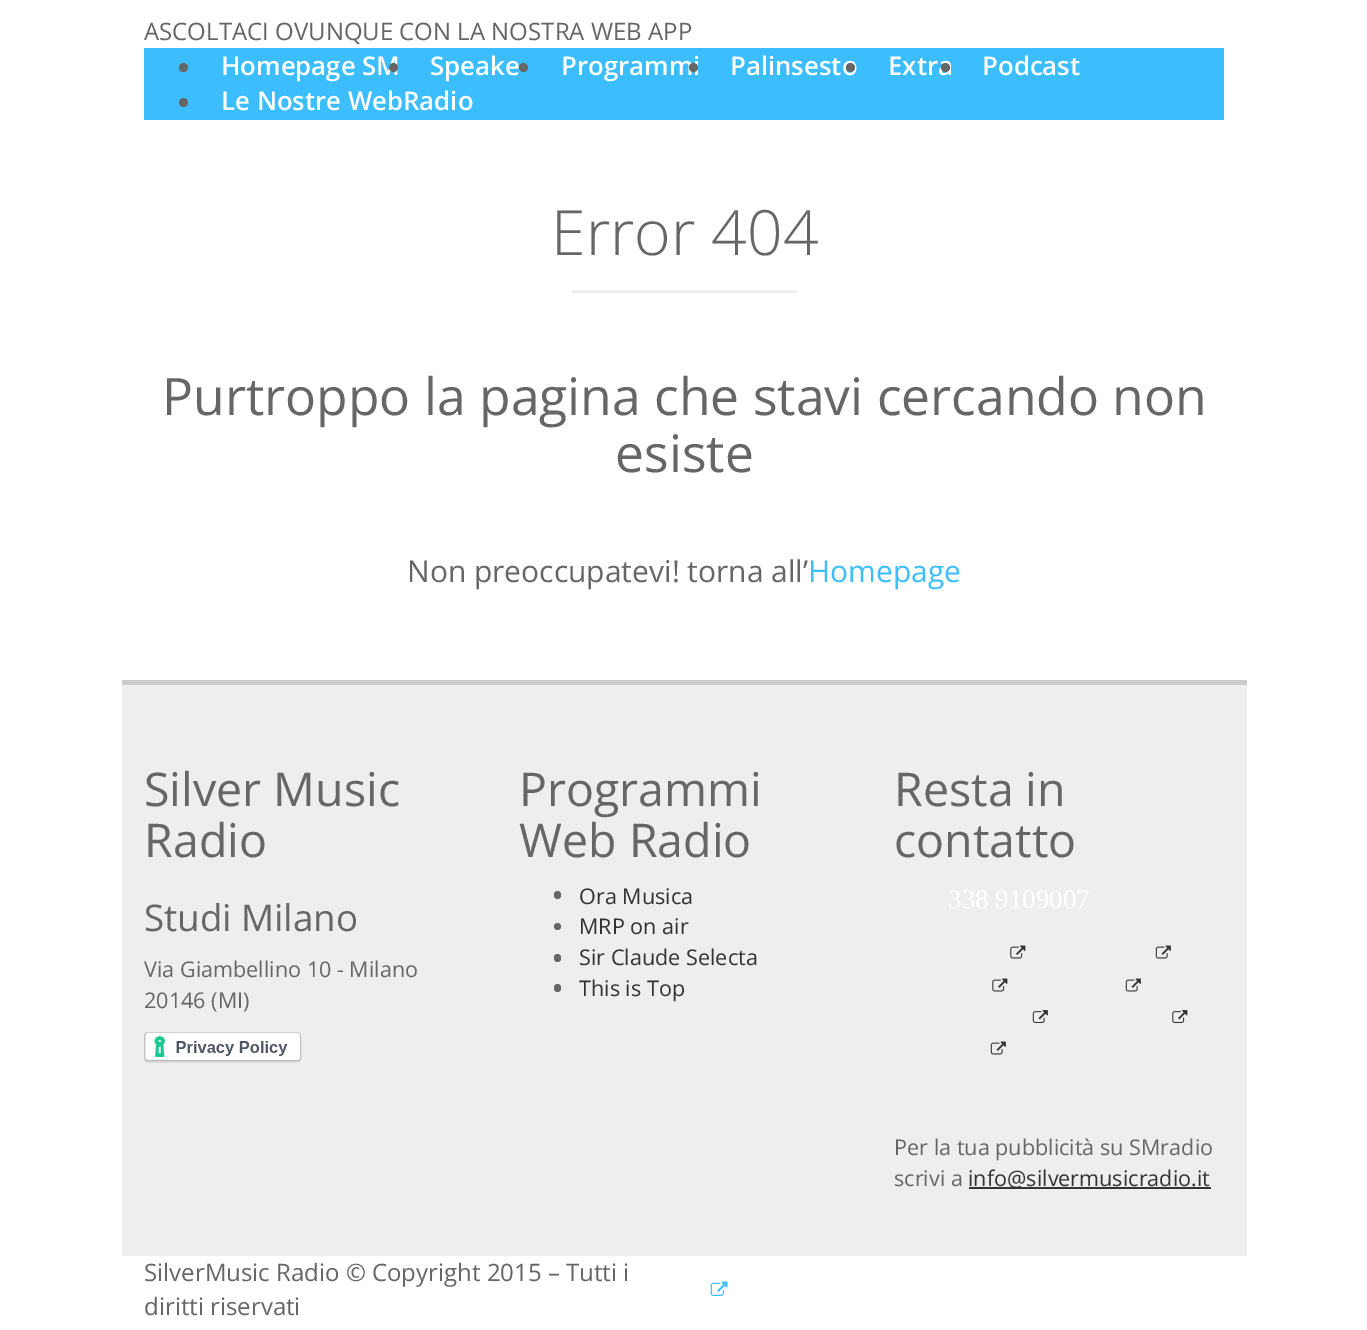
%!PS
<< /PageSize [1367 1330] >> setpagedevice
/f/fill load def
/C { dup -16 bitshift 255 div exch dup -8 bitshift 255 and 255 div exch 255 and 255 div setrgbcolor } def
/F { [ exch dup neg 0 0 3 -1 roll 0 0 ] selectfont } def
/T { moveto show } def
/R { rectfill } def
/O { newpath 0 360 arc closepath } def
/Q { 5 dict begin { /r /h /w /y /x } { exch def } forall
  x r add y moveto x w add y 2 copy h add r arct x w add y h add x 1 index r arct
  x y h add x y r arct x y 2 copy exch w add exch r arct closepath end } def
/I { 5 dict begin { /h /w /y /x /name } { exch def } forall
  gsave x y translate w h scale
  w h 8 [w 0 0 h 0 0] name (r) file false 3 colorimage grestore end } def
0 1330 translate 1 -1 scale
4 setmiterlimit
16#FFFFFF C
0 0 1367 1330 R
/OpenSans-Regular 24 F
16#666666 C
(ASCOLTACI OVUNQUE CON LA NOSTRA WEB APP) 144 40 T
16#3CBEFE C
144 48 1080 72 R
16#666666 C
183.5 67.5 4.5 O f
/OpenSans-SemiBold 25.75 F
16#FFFFFF C
(Homepage SM) 221 75 T
16#666666 C
393.5 67.5 4.5 O f
16#FFFFFF C
(Speake) 430 75 T
16#666666 C
523.5 67.5 4.5 O f
16#FFFFFF C
(Programmi) 561 75 T
16#666666 C
693.5 67.5 4.5 O f
16#FFFFFF C
(Palinsesto) 730 75 T
16#666666 C
850.5 67.5 4.5 O f
16#FFFFFF C
(Extra) 888 75 T
16#666666 C
945.5 67.5 4.5 O f
16#FFFFFF C
(Podcast) 982 75 T
16#666666 C
183.5 102.5 4.5 O f
16#FFFFFF C
(Le Nostre WebRadio) 221 110 T
/OpenSans-Light 62.5 F
16#666666 C
(Error 404) 551 255 T
16#EEEEEE C
572 290 225 3 R
/OpenSans-Regular 51.6 F
16#666666 C
(Purtroppo la pagina che stavi cercando non) 162 415 T
(esiste) 615 472 T
/OpenSans-Regular 30 F
(Non preoccupatevi! torna all’) 407 582 T
16#3CBEFE C
(Homepage) 808 582 T
16#EEEEEE C
122 685 1125 571 R
16#CCCCCC C
122 680 1125 5 R
/OpenSans-Regular 46.5 F
16#666666 C
(Silver Music) 144 806 T
(Radio) 144 857 T
/OpenSans-Regular 36.75 F
(Studi Milano) 144 931 T
/OpenSans-Regular 21.6 F
(Via Giambellino 10 - Milano) 144 977 T
(20146 \(MI\)) 144 1008 T
(1.rgb) 144 1032 158 31 I
/OpenSans-Regular 46.5 F
(Programmi) 519 806 T
(Web Radio) 519 857 T
554 891 7 8 3.5 Q f
/OpenSans-Regular 21.6 F
16#333333 C
(Ora Musica) 579 904 T
16#666666 C
557.5 926.5 3.5 O f
16#333333 C
(MRP on air) 579 934 T
16#666666 C
554 954 7 8 3.5 Q f
16#333333 C
(Sir Claude Selecta) 579 965 T
16#666666 C
554 984 7 8 3.5 Q f
16#333333 C
(This is Top) 579 996 T
/OpenSans-Regular 46.5 F
16#666666 C
(Resta in) 894 806 T
(contatto) 894 857 T
/LiberationSerif-Regular 27 F
16#FFFFFF C
(338 9109007) 948 908 T
(2.rgb) 1010 945 16 14 I
(3.rgb) 1155 945 16 14 I
(2.rgb) 992 978 16 14 I
(3.rgb) 1125 978 16 14 I
(4.rgb) 1032 1010 16 13 I
(5.rgb) 1172 1010 16 13 I
(3.rgb) 990 1041 16 14 I
/OpenSans-Regular 21.6 F
16#666666 C
(Per la tua pubblicità su SMradio) 894 1155 T
(scrivi a) 894 1186 T
16#333333 C
969 1187 242 2 R
(info@silvermusicradio.it) 968 1186 T
/OpenSans-Regular 24 F
16#666666 C
(SilverMusic Radio © Copyright 2015 – Tutti i) 144 1281 T
(diritti riservati) 144 1315 T
(6.rgb) 710 1281 18 15 I
showpage
